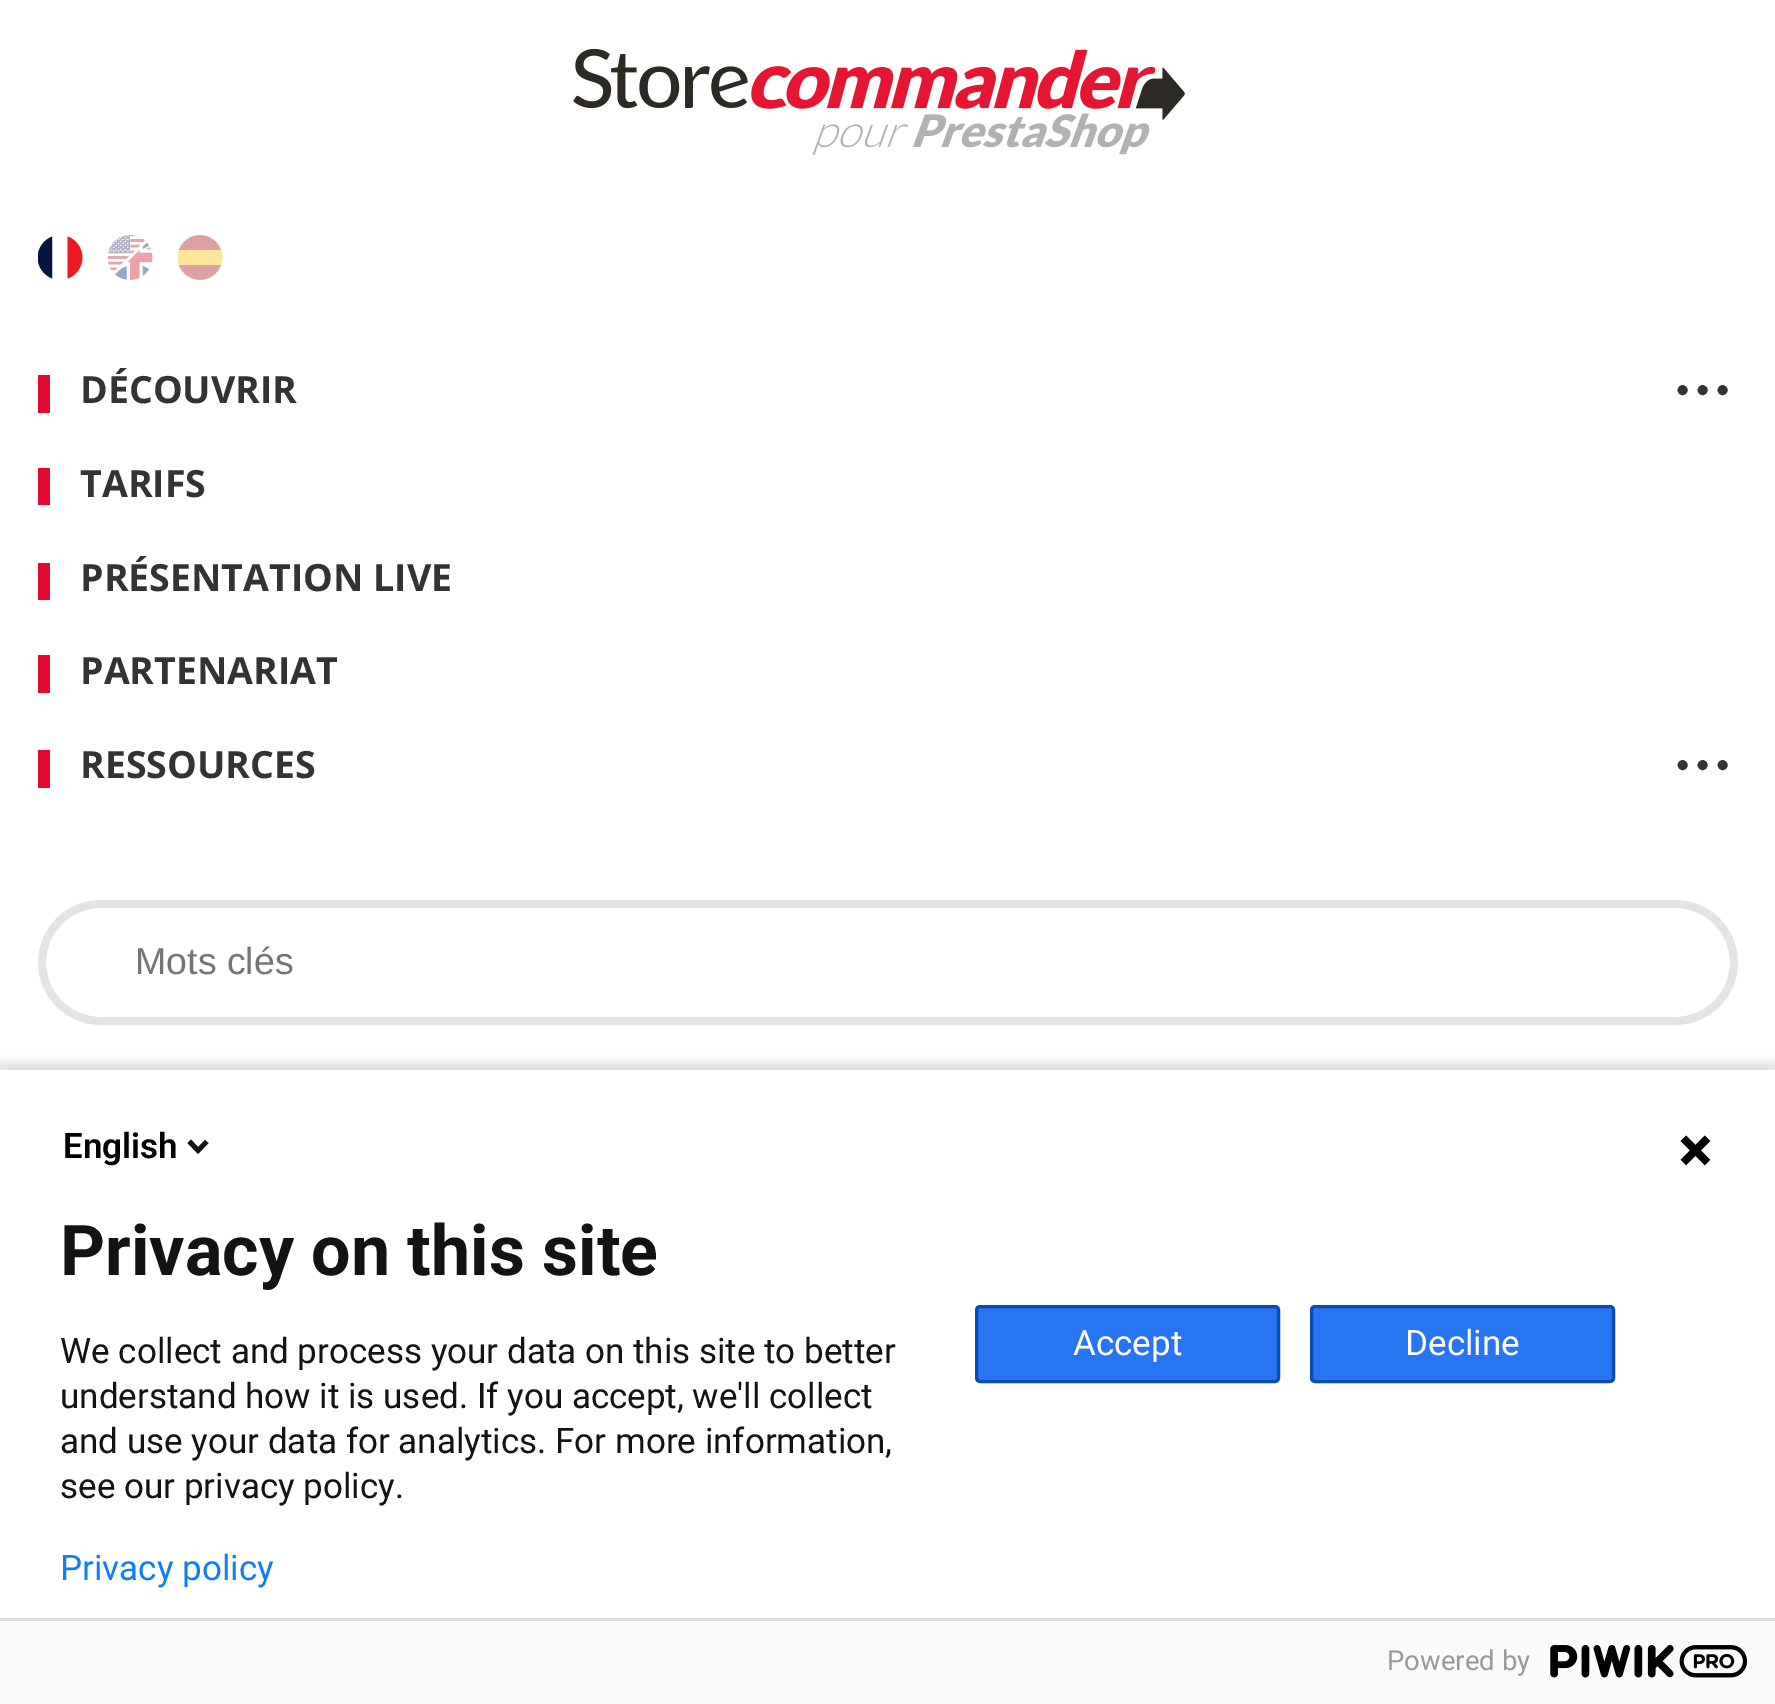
%!PS
<< /PageSize [1775 1704] /PageUsesTransparency true >> setpagedevice
/m/moveto load def
/l/rlineto load def
/z/closepath load def
/f/fill load def
/s/stroke load def
/q/gsave load def
/Q_/grestore load def
/w/setlinewidth load def
/C { dup -16 bitshift 255 div exch dup -8 bitshift 255 and 255 div exch 255 and 255 div setrgbcolor } def
/F { [ exch dup neg 0 0 3 -1 roll 0 0 ] selectfont } def
/T { moveto show } def
/R { rectfill } def
/A { dup .setfillconstantalpha .setstrokeconstantalpha } def
/Q { 5 dict begin { /r /h /w /y /x } { exch def } forall
  x r add y moveto x w add y 2 copy h add r arct x w add y h add x 1 index r arct
  x y h add x y r arct x y 2 copy exch w add exch r arct closepath end } def
/S { 12 dict begin { /a /b /q /h /w /y /x } { exch def } forall gsave /was 0 def
  9 -2 -9 { dup b mul 4 div /e exch def 1 sub .425 mul 2.718 exch exp 1 add a .99 .min exch div /now exch def
    1 1 now sub 1 was sub div sub A /was now def
    w h .min e 2 mul add 0 gt { x e sub y e sub w e 2 mul add h e 2 mul add
      q e add b .6 mul add w h .min 2 div e add .min 0 .max Q fill } if } for grestore end } def
/I { 5 dict begin { /h /w /y /x /name } { exch def } forall
  gsave x y translate w h scale
  w h 8 [w 0 0 h 0 0] name (r) file false 3 colorimage grestore end } def
0 .pushpdf14devicefilter
0 1704 translate 1 -1 scale
4 setmiterlimit
16#FFFFFF C
0 0 1775 1704 R
(1.rgb) 573 48 612 107 I
(2.rgb) 38 236 45 43 I
(3.rgb) 108 235 45 45 I
(4.rgb) 178 235 45 45 I
16#E40933 C
38 375 12 38 R
/OpenSans-Bold 37.5 F
16#333333 C
(DÉCOUVRIR) 80 403 T
10 w
1 setlinecap
[0 20] 0 setdash
1682.5 390 m 55 0 l s
16#E40933 C
38 468 12 37 R
16#333333 C
(TARIFS) 80 497 T
16#E40933 C
38 563 12 37 R
16#333333 C
(PRÉSENTATION LIVE) 80 591 T
16#E40933 C
38 655 12 38 R
16#333333 C
(PARTENARIAT) 80 684 T
16#E40933 C
38 750 12 38 R
16#333333 C
(RESSOURCES) 80 778 T
1682.5 765 m 55 0 l s
16#E4E4E4 C
8 w
0 setlinecap
[] 0 setdash
42 904 1692 117 58.5 Q s
/LiberationSans-Regular 37.5 F
16#757575 C
(Mots clés) 135 974 T
16#000000 C
-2 1063 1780 640 0 6 .14 S
16#FFFFFF C
0 1070 1775 548 R
/Roboto-SemiBold 35 F
16#000000 C
(English) 63 1158 T
16#131313 C
198 1147 m 7 -7 l 3.5 3 l -10.5 11 l -10.5 -11 l 3.5 -3.5 l z f
/Roboto-Bold 70 F
(Privacy on this site) 60 1275 T
/Roboto-Regular 35 F
(We collect and process your data on this site to better) 60 1363 T
(understand how it is used. If you accept, we'll collect) 60 1408 T
(and use your data for analytics. For more information,) 60 1453 T
(see our privacy policy.) 60 1498 T
16#107EF1 C
(Privacy policy) 60 1580 T
(5.rgb) 1680 1135 31 31 I
16#2775F2 C
976.5 1306.5 302 75 3.5 Q q f Q_
16#0B4BB3 C
3 w
s
16#FFFFFF C
(Accept) 1073 1355 T
16#2775F2 C
1311.5 1306.5 302 75 3.5 Q q f Q_
16#0B4BB3 C
s
16#FFFFFF C
(Decline) 1405 1355 T
16#FAFAFA C
0 1621 1775 83 R
16#DDDDDD C
0 1618 1775 3 R
/Roboto-Regular 27.5 F
16#999999 C
(Powered by) 1387 1670 T
(6.rgb) 1550 1645 198 33 I
.poppdf14devicefilter showpage
